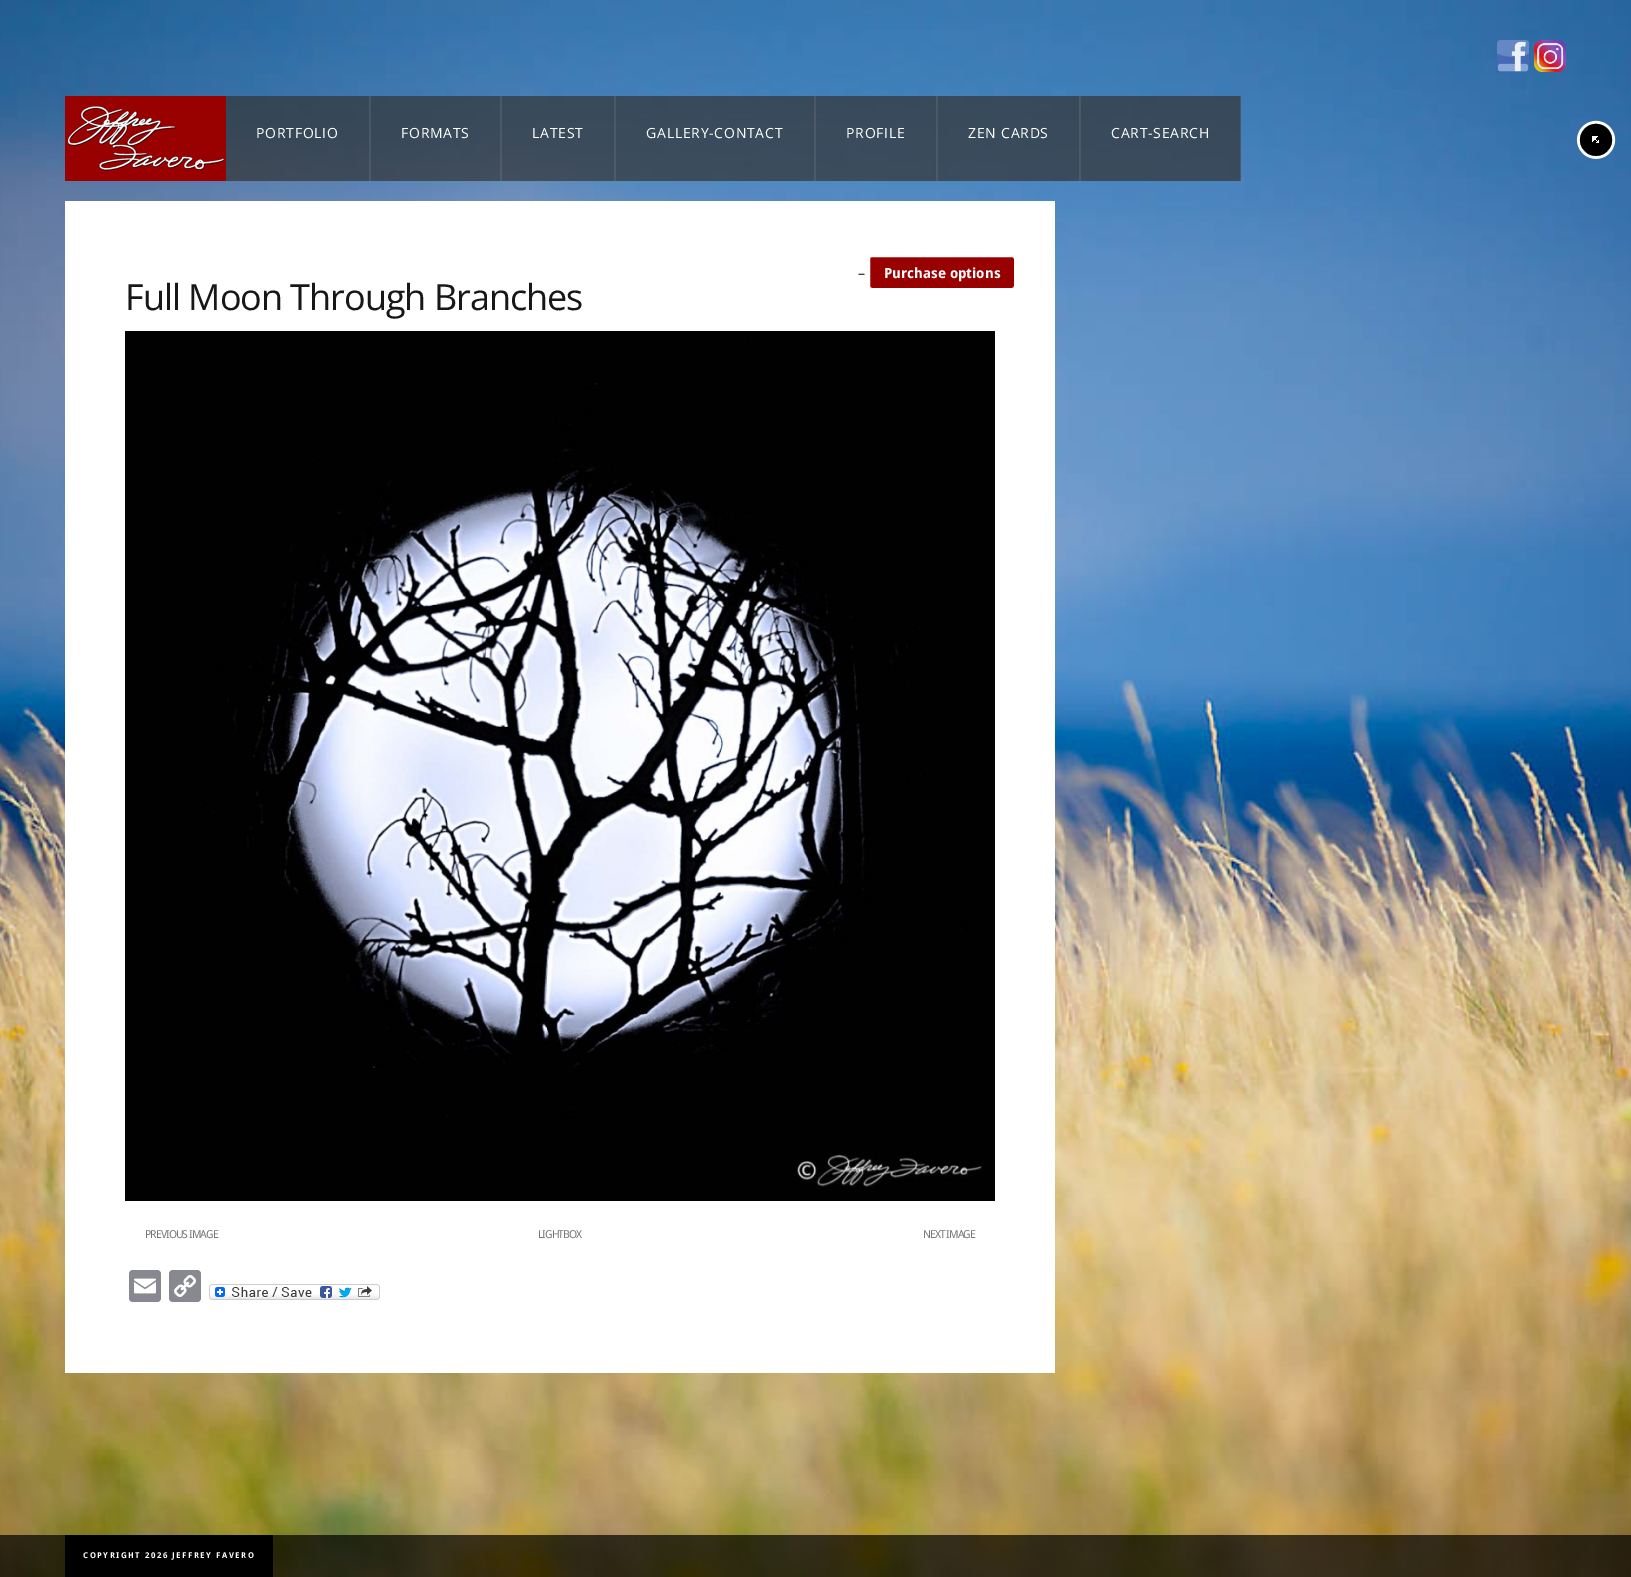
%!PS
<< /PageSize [1631 1577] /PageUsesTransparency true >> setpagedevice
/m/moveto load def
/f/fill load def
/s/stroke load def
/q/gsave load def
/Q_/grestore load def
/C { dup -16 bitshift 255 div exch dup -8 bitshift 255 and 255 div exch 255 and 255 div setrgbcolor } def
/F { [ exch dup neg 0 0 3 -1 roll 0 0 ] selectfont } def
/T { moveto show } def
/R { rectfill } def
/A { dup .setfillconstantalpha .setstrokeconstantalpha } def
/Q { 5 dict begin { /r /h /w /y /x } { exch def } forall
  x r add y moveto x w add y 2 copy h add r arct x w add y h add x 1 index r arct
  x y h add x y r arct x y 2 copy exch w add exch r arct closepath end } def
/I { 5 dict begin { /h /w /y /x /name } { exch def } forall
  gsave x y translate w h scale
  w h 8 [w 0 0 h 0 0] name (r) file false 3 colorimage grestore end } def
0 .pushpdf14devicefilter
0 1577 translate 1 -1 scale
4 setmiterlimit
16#FFFFFF C
0 0 1631 1577 R
(1.rgb) 0 0 1631 1577 I
(2.rgb) 1497 40 32 32 I
(3.rgb) 1534 40 32 32 I
(4.rgb) 65 96 161 85 I
0.7 A
16#333333 C
226 96 144 85 R
0.2 A
16#9B9B9B C
369 96 1 85 R
/OpenSans-Regular 14 F
1 A
16#FFFFFF C
256 138 m .75 0 (PORTFOLIO) ashow
0.7 A
16#333333 C
370 96 131 85 R
0.08 A
16#FFFFFF C
370 96 1 85 R
0.2 A
16#9B9B9B C
500 96 1 85 R
1 A
16#FFFFFF C
401 138 m .75 0 (FORMATS) ashow
0.7 A
16#333333 C
501 96 114 85 R
0.08 A
16#FFFFFF C
501 96 1 85 R
0.2 A
16#9B9B9B C
614 96 1 85 R
1 A
16#FFFFFF C
532 138 m .75 0 (LATEST) ashow
0.7 A
16#333333 C
615 96 200 85 R
0.08 A
16#FFFFFF C
615 96 1 85 R
0.2 A
16#9B9B9B C
814 96 1 85 R
1 A
16#FFFFFF C
646 138 m .75 0 (GALLERY-CONTACT) ashow
0.7 A
16#333333 C
815 96 122 85 R
0.08 A
16#FFFFFF C
815 96 1 85 R
0.2 A
16#9B9B9B C
936 96 1 85 R
1 A
16#FFFFFF C
846 138 m .75 0 (PROFILE) ashow
0.7 A
16#333333 C
937 96 143 85 R
0.08 A
16#FFFFFF C
937 96 1 85 R
0.2 A
16#9B9B9B C
1079 96 1 85 R
1 A
16#FFFFFF C
968 138 m .75 0 (ZEN CARDS) ashow
0.7 A
16#333333 C
1080 96 161 85 R
0.08 A
16#FFFFFF C
1080 96 1 85 R
0.2 A
16#9B9B9B C
1240 96 1 85 R
1 A
16#FFFFFF C
1111 138 m .75 0 (CART-SEARCH) ashow
(5.rgb) 1576 120 40 39 I
65 201 990 1172 R
/DroidSans-Regular 14 F
16#000000 C
(–) 858 278 T
16#990000 C
869.5 256.5 145 32 2.5 Q q f Q_
16#FFFFFF C
s
/DroidSans-Bold 14 F
(Purchase options) 884 278 T
/OpenSans-Regular 36 F
16#171717 C
125 310 m -1 0 (Full Moon Through Branches) ashow
(6.rgb) 125 331 870 870 I
/DroidSans-Regular 11 F
16#777777 C
145 1238 m -1 0 (PREVIOUS IMAGE) ashow
538 1238 m -1 0 (LIGHTBOX) ashow
923 1238 m -1 0 (NEXT IMAGE) ashow
16#888990 C
129 1270 32 32 4 Q f
(7.rgb) 134 1278 22 16 I
169 1270 32 32 4 Q f
(8.rgb) 174 1275 22 22 I
(9.rgb) 209 1284 171 16 I
0.7 A
16#000000 C
0 1535 1631 42 R
1 A
65 1535 208 42 R
/DroidSans-Bold 8 F
16#FFFFFF C
83 1558 m 1.5 0 (COPYRIGHT 2026 JEFFREY FAVERO) ashow
.poppdf14devicefilter showpage
